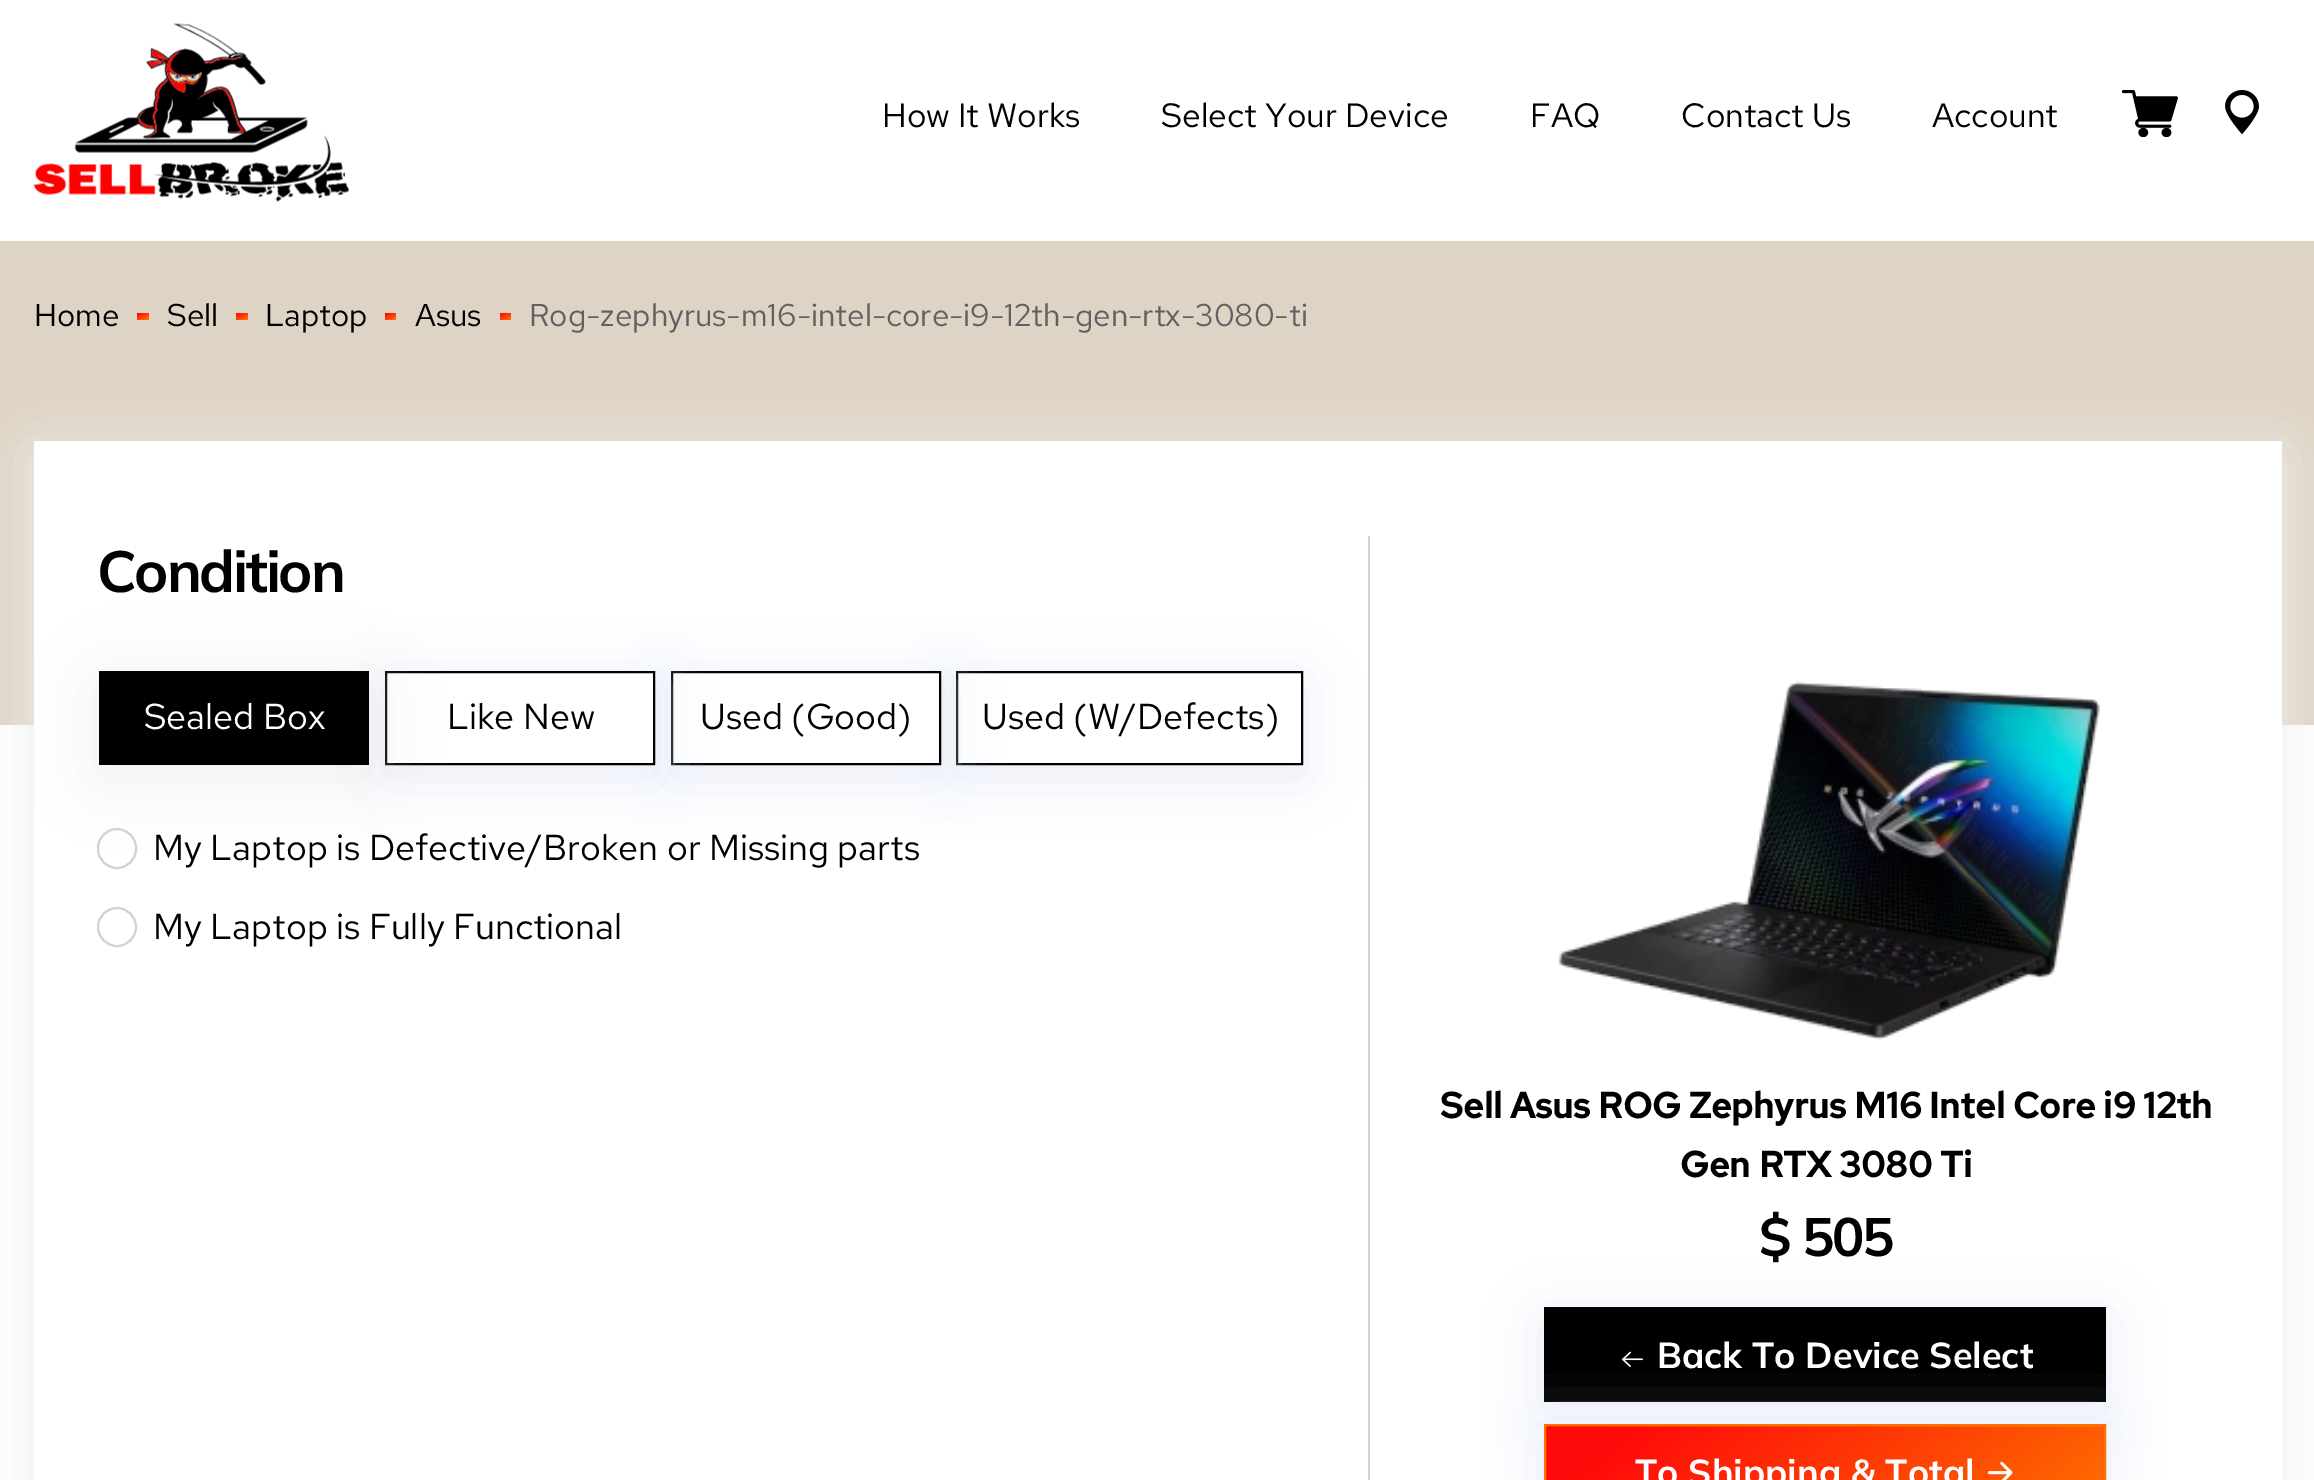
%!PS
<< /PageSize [2314 1480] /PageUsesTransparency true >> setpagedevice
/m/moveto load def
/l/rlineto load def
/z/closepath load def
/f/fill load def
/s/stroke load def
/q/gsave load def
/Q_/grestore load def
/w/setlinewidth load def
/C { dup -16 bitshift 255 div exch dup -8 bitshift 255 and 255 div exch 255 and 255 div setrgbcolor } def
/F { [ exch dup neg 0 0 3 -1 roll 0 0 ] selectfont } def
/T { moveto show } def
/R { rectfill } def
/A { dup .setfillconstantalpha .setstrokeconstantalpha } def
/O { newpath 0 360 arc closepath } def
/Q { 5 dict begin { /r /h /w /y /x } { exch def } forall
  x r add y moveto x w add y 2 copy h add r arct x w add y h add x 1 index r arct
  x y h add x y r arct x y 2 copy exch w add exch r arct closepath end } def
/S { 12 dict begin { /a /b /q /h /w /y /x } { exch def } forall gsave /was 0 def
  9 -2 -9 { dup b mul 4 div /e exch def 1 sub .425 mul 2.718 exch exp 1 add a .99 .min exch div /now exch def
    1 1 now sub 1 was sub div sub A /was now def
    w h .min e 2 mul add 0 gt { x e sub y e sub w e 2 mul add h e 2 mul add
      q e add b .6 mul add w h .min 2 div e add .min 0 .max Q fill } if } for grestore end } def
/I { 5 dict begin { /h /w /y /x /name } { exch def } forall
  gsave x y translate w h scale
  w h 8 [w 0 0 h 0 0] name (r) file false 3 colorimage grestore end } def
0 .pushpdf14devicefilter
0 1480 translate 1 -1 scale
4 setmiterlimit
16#DED4C5 C
0 0 2314 1480 R
16#FFFFFF C
0 0 2314 241 R
(1.rgb) 33 23 316 179 I
/RedHatText-Regular 33.75 F
16#000000 C
(How It Works) 882 127 T
(Select Your Device) 1161 127 T
(FAQ) 1530 127 T
(Contact Us) 1681 127 T
(Account) 1932 127 T
(2.rgb) 2122 90 56 47 I
(3.rgb) 2225 90 34 45 I
16#FFFFFF C
0 725 2314 755 R
/RedHatText-Regular 31.5 F
16#000000 C
(Home) 34 326 T
q 137 313 m 12 0 l 0 7 l -12 0 l z clip newpath
<< /ShadingType 2 /ColorSpace /DeviceRGB /Coords [140 311 145 321] /Extend [true true] /Function << /FunctionType 3 /Domain [0 1] /Functions [<< /FunctionType 2 /Domain [0 1] /C0 [1 .039 .039] /C1 [1 .039 .039] /N 1 >> << /FunctionType 2 /Domain [0 1] /C0 [1 .039 .039] /C1 [.996 .447 0] /N 1 >>] /Bounds [.13] /Encode [0 1 0 1] >> >> shfill Q_
(Sell) 167 326 T
q 236 313 m 12 0 l 0 7 l -12 0 l z clip newpath
<< /ShadingType 2 /ColorSpace /DeviceRGB /Coords [239 311 244 321] /Extend [true true] /Function << /FunctionType 3 /Domain [0 1] /Functions [<< /FunctionType 2 /Domain [0 1] /C0 [1 .039 .039] /C1 [1 .039 .039] /N 1 >> << /FunctionType 2 /Domain [0 1] /C0 [1 .039 .039] /C1 [.996 .447 0] /N 1 >>] /Bounds [.13] /Encode [0 1 0 1] >> >> shfill Q_
(Laptop) 265 326 T
q 385 313 m 11 0 l 0 7 l -11 0 l z clip newpath
<< /ShadingType 2 /ColorSpace /DeviceRGB /Coords [388 311 393 321] /Extend [true true] /Function << /FunctionType 3 /Domain [0 1] /Functions [<< /FunctionType 2 /Domain [0 1] /C0 [1 .039 .039] /C1 [1 .039 .039] /N 1 >> << /FunctionType 2 /Domain [0 1] /C0 [1 .039 .039] /C1 [.996 .447 0] /N 1 >>] /Bounds [.13] /Encode [0 1 0 1] >> >> shfill Q_
(Asus) 415 326 T
q 500 313 m 11 0 l 0 7 l -11 0 l z clip newpath
<< /ShadingType 2 /ColorSpace /DeviceRGB /Coords [503 311 508 321] /Extend [true true] /Function << /FunctionType 3 /Domain [0 1] /Functions [<< /FunctionType 2 /Domain [0 1] /C0 [1 .039 .039] /C1 [1 .039 .039] /N 1 >> << /FunctionType 2 /Domain [0 1] /C0 [1 .039 .039] /C1 [.996 .447 0] /N 1 >>] /Bounds [.13] /Encode [0 1 0 1] >> >> shfill Q_
16#606060 C
(Rog-zephyrus-m16-intel-core-i9-12th-gen-rtx-3080-ti) 529 326 T
16#EDEDED C
34 452 2248 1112 0 28 1 S
16#FFFFFF C
34 441 2248 1039 R
16#D0D2D3 C
1368 536 2 944 R
/Mulish-Bold 58 F
16#000000 C
97 592 m -2.25 0 (Condition) ashow
16#DEE6F2 C
956 682 347 94 0 28 .72 S
16#FFFFFF C
957 672 m 345 0 l 0 92 l -345 0 l z q f Q_
16#000000 C
2 w
s
16#DEE6F2 C
671 682 270 94 0 28 .72 S
16#FFFFFF C
672 672 m 268 0 l 0 92 l -268 0 l z q f Q_
16#000000 C
s
16#DEE6F2 C
385 682 270 94 0 28 .72 S
16#FFFFFF C
386 672 m 268 0 l 0 92 l -268 0 l z q f Q_
16#000000 C
s
16#D7DADD C
99 682 270 94 0 34 .44 S
16#000000 C
99 671 270 94 R
/RedHatText-Regular 36 F
16#FFFFFF C
(Sealed Box) 144 729 T
16#000000 C
(Like New) 447 729 T
(Used \(Good\)) 700 729 T
(Used \(W/Defects\)) 982 729 T
16#D0D2D3 C
98 829 38 39 19 Q s
16#000000 C
(My Laptop is Defective/Broken or Missing parts) 153 860 T
16#D0D2D3 C
117 927 19 O s
16#000000 C
(My Laptop is Fully Functional) 153 939 T
(4.rgb) 1558 681 542 359 I
/RedHatText-Bold 36 F
(Sell Asus ROG Zephyrus M16 Intel Core i9 12th) 1440 1118 T
(Gen RTX 3080 Ti) 1680 1177 T
/Mulish-Bold 54 F
1759 1256 m -2.25 0 ($ 505) ashow
16#DEE6F2 C
1544 1319 562 94 0 28 .72 S
16#000000 C
1544 1307 562 95 R
16#DEE6F2 C
1544 1436 562 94 0 28 .72 S
(5.rgb) 1621 1351 22 16 I
/Mulish-Bold 36 F
16#FFFFFF C
(Back To Device Select) 1657 1368 T
q 1546 1426 m 558 0 l 0 1 l -558 0 l z clip newpath
<< /ShadingType 2 /ColorSpace /DeviceRGB /Coords [1688 1218 1966 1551] /Extend [true true] /Function << /FunctionType 3 /Domain [0 1] /Functions [<< /FunctionType 2 /Domain [0 1] /C0 [1 .039 .039] /C1 [1 .039 .039] /N 1 >> << /FunctionType 2 /Domain [0 1] /C0 [1 .039 .039] /C1 [.996 .447 0] /N 1 >>] /Bounds [.13] /Encode [0 1 0 1] >> >> shfill Q_
q 1546 1427 m 558 0 l 0 53 l -558 0 l z clip newpath
<< /ShadingType 2 /ColorSpace /DeviceRGB /Coords [1688 1308 1966 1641] /Extend [true true] /Function << /FunctionType 3 /Domain [0 1] /Functions [<< /FunctionType 2 /Domain [0 1] /C0 [1 .039 .039] /C1 [1 .039 .039] /N 1 >> << /FunctionType 2 /Domain [0 1] /C0 [1 .039 .039] /C1 [.996 .447 0] /N 1 >>] /Bounds [.13] /Encode [0 1 0 1] >> >> shfill Q_
16#FE7200 C
1545 1425 560 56 rectstroke
16#FFFFFF C
(To Shipping & Total) 1635 1485 T
(6.rgb) 1987 1461 26 19 I
.poppdf14devicefilter showpage
